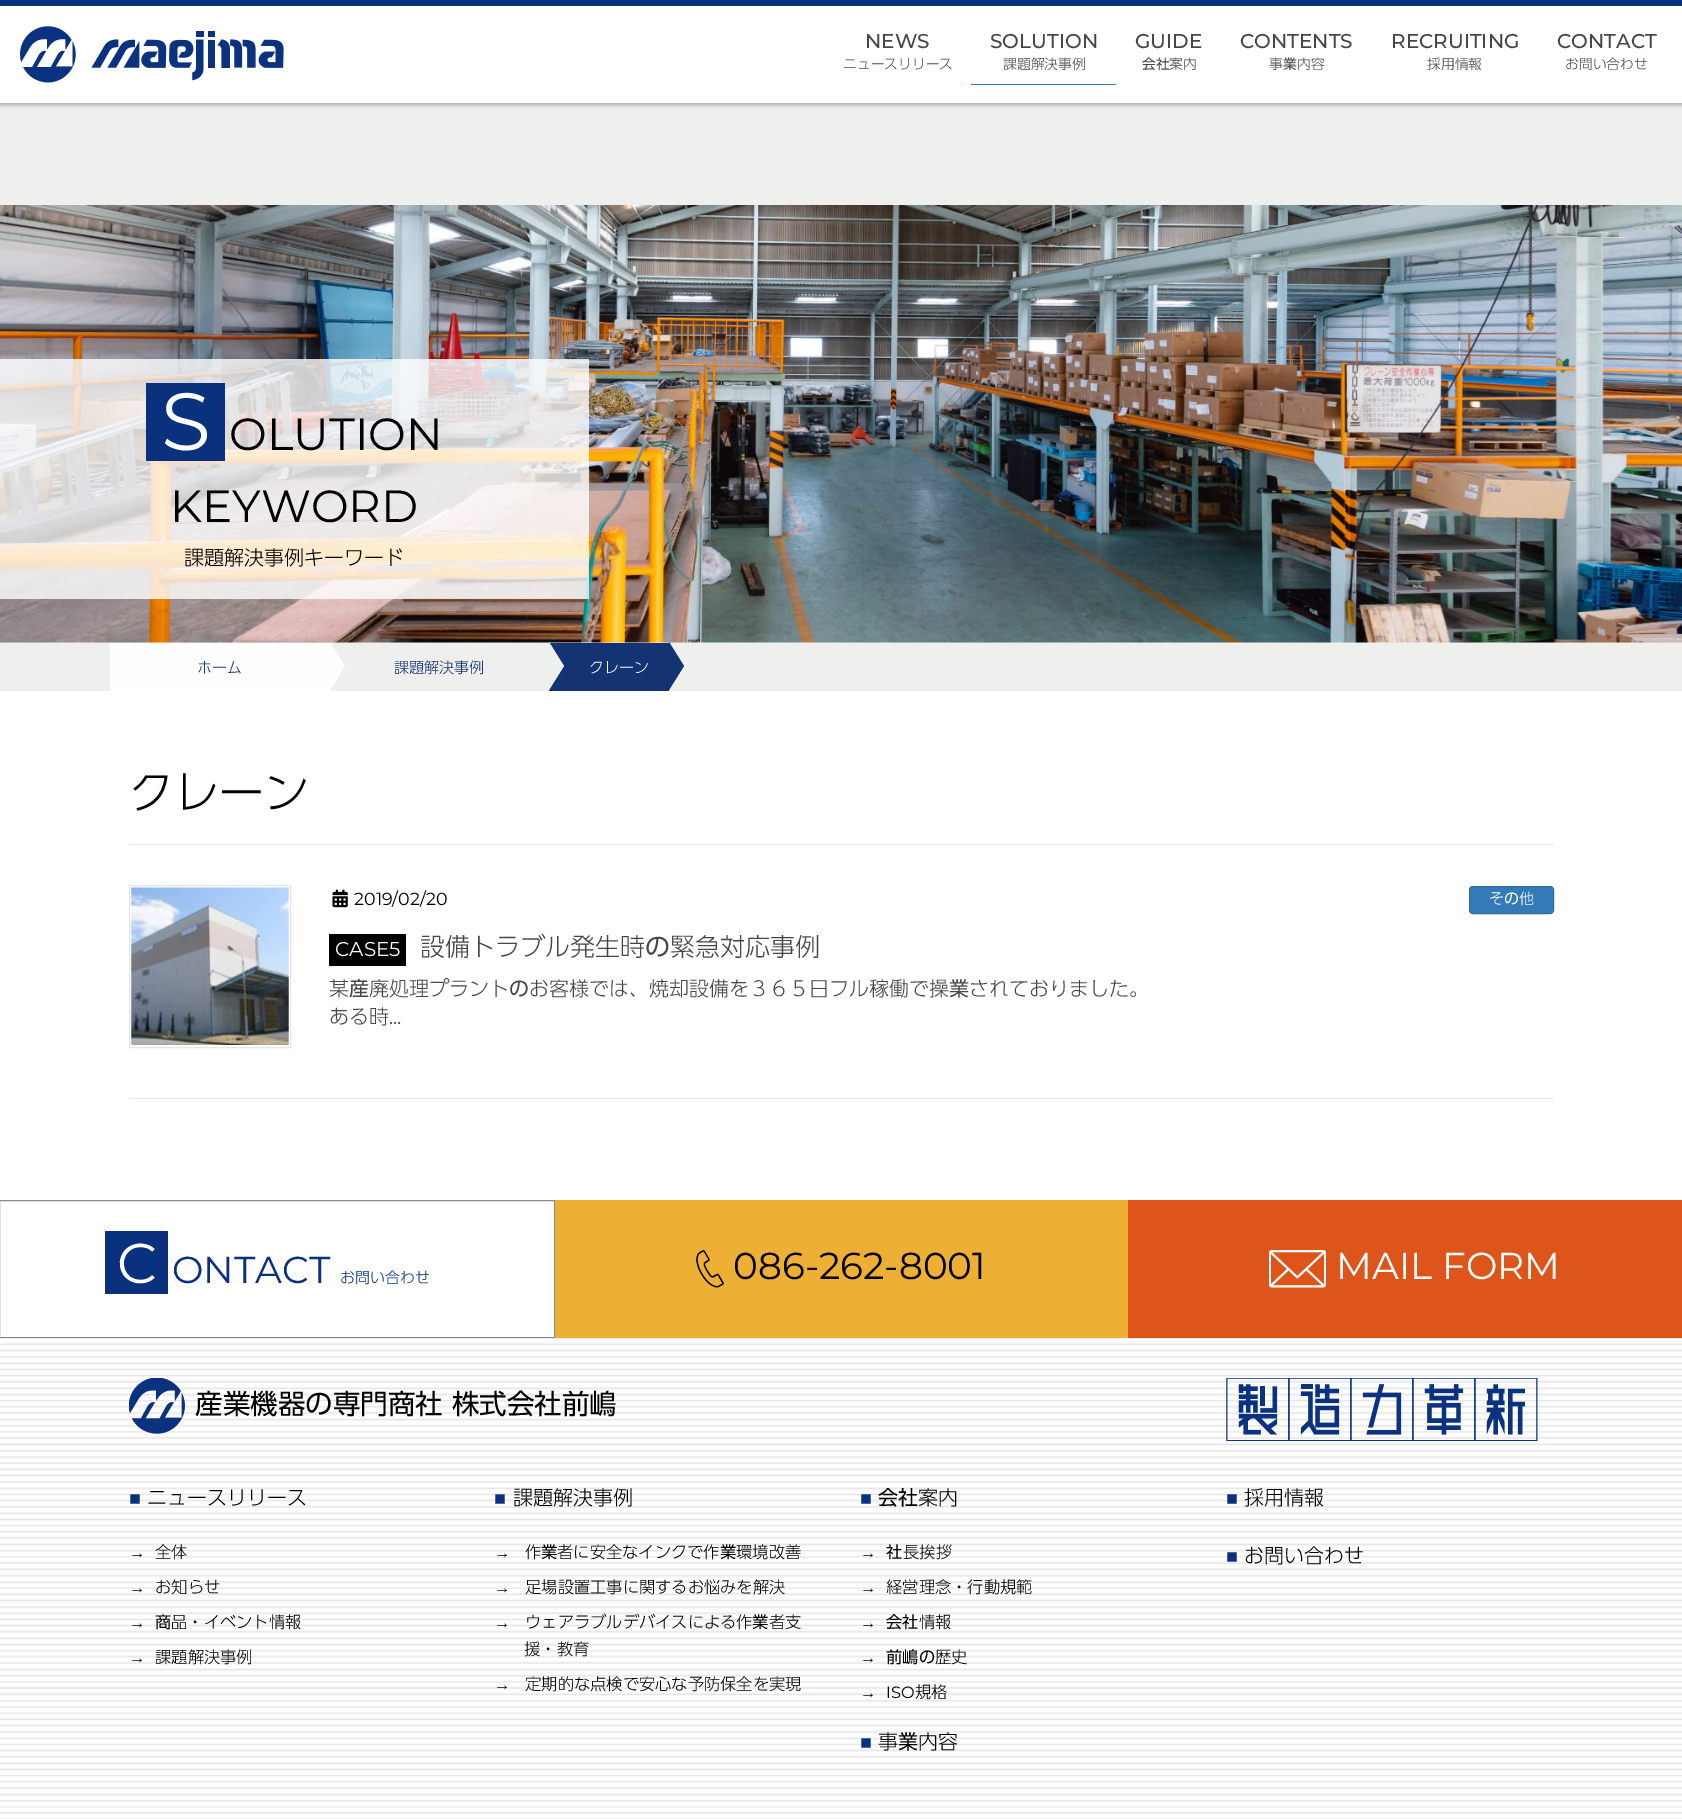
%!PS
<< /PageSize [1682 1819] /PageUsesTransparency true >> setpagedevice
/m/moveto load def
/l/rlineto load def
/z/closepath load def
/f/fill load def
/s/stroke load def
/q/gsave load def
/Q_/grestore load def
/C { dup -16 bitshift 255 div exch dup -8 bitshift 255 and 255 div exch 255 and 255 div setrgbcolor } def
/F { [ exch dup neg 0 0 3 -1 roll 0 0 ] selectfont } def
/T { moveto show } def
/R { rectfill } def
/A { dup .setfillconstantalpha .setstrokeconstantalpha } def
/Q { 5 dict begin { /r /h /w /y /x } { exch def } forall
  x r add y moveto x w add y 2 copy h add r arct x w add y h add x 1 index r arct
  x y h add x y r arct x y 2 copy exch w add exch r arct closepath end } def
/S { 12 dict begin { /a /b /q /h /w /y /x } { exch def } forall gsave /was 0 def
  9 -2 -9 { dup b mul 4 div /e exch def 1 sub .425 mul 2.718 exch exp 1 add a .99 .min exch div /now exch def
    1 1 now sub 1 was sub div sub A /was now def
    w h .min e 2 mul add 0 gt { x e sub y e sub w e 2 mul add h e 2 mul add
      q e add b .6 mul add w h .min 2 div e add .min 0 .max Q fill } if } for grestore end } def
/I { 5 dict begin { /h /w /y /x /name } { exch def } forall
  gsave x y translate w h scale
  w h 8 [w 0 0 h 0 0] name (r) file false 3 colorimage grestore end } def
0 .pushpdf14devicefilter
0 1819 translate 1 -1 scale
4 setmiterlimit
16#EFEFEE C
0 0 1682 1819 R
16#000000 C
0 3 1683 102 0 2 .3 S
16#FFFFFF C
0 6 1682 97 R
16#09317E C
0 0 1682 6 R
(1.rgb) 20 26 264 57 I
/Montserrat-Medium 20 F
16#464646 C
(NEWS) 865 48 T
/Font-Light 13.75 F
(ニュースリリース) 843 69 T
/Montserrat-Medium 20 F
(SOLUTION) 990 48 T
/Font-Light 13.75 F
(課題解決事例) 1003 69 T
16#337AB7 C
971 84 145 1 R
/Montserrat-Medium 20 F
16#464646 C
(GUIDE) 1135 48 T
/Font-Regular 13.75 F
(会社) 1142 69 T
/Font-Light 13.75 F
(案内) 1169 69 T
/Montserrat-Medium 20 F
(CONTENTS) 1240 48 T
/Font-Light 13.75 F
(事) 1269 69 T
/Font-Regular 13.75 F
(業) 1283 69 T
/Font-Light 13.75 F
(内容) 1297 69 T
/Montserrat-Medium 20 F
(RECRUITING) 1391 48 T
/Font-Light 13.75 F
(採用情報) 1427 69 T
/Montserrat-Medium 20 F
(CONTACT) 1557 48 T
/Font-Light 13.75 F
(お問い合わせ) 1565 69 T
(2.rgb) 0 205 1682 438 I
0.8 A
16#FFFFFF C
0 359 589 240 R
1 A
16#09317E C
146 383 79 78 R
/Montserrat-Regular 81 F
16#FFFFFF C
(S) 161 450 T
/Montserrat-Regular 45 F
16#000000 C
(OLUTION) 229 450 T
(KEYWORD) 170 522 T
/Font-Light 20 F
(課題解決事例キーワード) 184 565 T
16#FEFEFE C
110 643 220 48 R
/Font-Light 15 F
16#133373 C
(ホーム) 197 673 T
16#FEFEFE C
330 690 m 0 -48 l 15 24 l z f
16#133373 C
(課題解決事例) 394 673 T
549 643 120 48 R
16#EEEFEF C
549 690 m 0 -48 l 15 24 l z f
16#FFFFFF C
(クレーン) 589 673 T
16#133373 C
669 690 m 0 -48 l 15 24 l z f
16#FFFFFF C
0 691 1682 509 R
/Font-Light 45 F
16#000000 C
(クレーン) 129 809 T
16#E5E5E5 C
129 844 1425 1 R
129 1098 1425 1 R
129.5 885.5 161 162 rectstroke
(3.rgb) 131 887 158 158 I
(4.rgb) 332 889 16 19 I
/Montserrat-Regular 17.5 F
16#000000 C
(2019/02/20) 354 905 T
16#337AB7 C
1469.5 886.5 84 27 3.5 Q q f Q_
16#2E6DA4 C
s
/Font-Light 15 F
16#FFFFFF C
(そ) 1489 904 T
/Font-Regular 15 F
(の) 1504 904 T
/Font-Light 15 F
(他) 1519 904 T
16#000000 C
329 934 77 32 R
/Montserrat-Regular 20 F
16#FFFFFF C
(CASE5) 335 956 T
/Font-Light 25 F
16#464646 C
(設備トラブル発生時) 420 956 T
/Font-Regular 25 F
(の) 645 956 T
/Font-Light 25 F
(緊急対応事例) 670 956 T
/Font-Light 20 F
(某) 329 996 T
/Font-Regular 20 F
(産) 349 996 T
/Font-Light 20 F
(廃処理プラント) 369 996 T
/Font-Regular 20 F
(の) 509 996 T
/Font-Light 20 F
(お客様では、焼却設備を３６５日フル稼働で操) 529 996 T
/Font-Regular 20 F
(業) 949 996 T
/Font-Light 20 F
(されておりました。) 969 996 T
(ある時) 329 1024 T
/Montserrat-Regular 20 F
(...) 389 1024 T
16#FFFFFF C
-.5 1200.5 m 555 0 l 0 137 l -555 0 l z q f Q_
16#898989 C
s
16#09317E C
105 1231 63 63 R
/Montserrat-Regular 56 F
16#FFFFFF C
(C) 117 1283 T
/Montserrat-Regular 37.5 F
16#09317E C
(ONTACT) 172 1283 T
/Font-Light 15 F
(お問い合わせ) 340 1283 T
16#EEB034 C
555 1200 573 138 R
(5.rgb) 696 1250 28 38 I
/Montserrat-Regular 37.5 F
16#000000 C
(086-262-8001) 733 1279 T
16#DD551A C
1128 1200 554 138 R
(6.rgb) 1269 1250 57 38 I
16#FFFFFF C
(MAIL FORM) 1336 1279 T
16#F5F5F5 C
0 1818 1682 1 R
(7.rgb) 0 1338 1682 480 I
(8.rgb) 129 1378 56 56 I
/Font-Regular 27.5 F
16#000000 C
(産業機器の専門商社 株式会社前嶋) 195 1414 T
(9.rgb) 1226 1378 312 63 I
/LiberationSerif-Regular 20 F
16#09317E C
(■) 129 1505 T
/Font-Light 20 F
16#000000 C
(ニュースリリース) 147 1505 T
/LiberationSerif-Regular 16.25 F
(→) 129 1558 T
/Font-Light 16.25 F
(全体) 155 1558 T
/LiberationSerif-Regular 16.25 F
(→) 129 1593 T
/Font-Light 16.25 F
(お知らせ) 155 1593 T
/LiberationSerif-Regular 16.25 F
(→) 129 1628 T
/Font-Regular 16.25 F
(商) 155 1628 T
/Font-Light 16.25 F
(品・イベント情報) 171 1628 T
/LiberationSerif-Regular 16.25 F
(→) 129 1663 T
/Font-Light 16.25 F
(課題解決事例) 155 1663 T
/LiberationSerif-Regular 20 F
16#09317E C
(■) 494 1505 T
/Font-Light 20 F
16#000000 C
(課題解決事例) 513 1505 T
/LiberationSerif-Regular 16.25 F
(→) 494 1558 T
/Font-Light 16.25 F
(作) 525 1558 T
/Font-Regular 16.25 F
(業) 541 1558 T
/Font-Light 16.25 F
(者に安全なインクで作) 557 1558 T
/Font-Regular 16.25 F
(業) 720 1558 T
/Font-Light 16.25 F
(環境改善) 736 1558 T
/LiberationSerif-Regular 16.25 F
(→) 494 1593 T
/Font-Light 16.25 F
(足場設置工事に関するお悩みを解決) 525 1593 T
/LiberationSerif-Regular 16.25 F
(→) 494 1628 T
/Font-Light 16.25 F
(ウェアラブルデバイスによる作) 525 1628 T
/Font-Regular 16.25 F
(業) 752 1628 T
/Font-Light 16.25 F
(者支) 769 1628 T
(援・教育) 524 1655 T
/LiberationSerif-Regular 16.25 F
(→) 494 1690 T
/Font-Light 16.25 F
(定期的な点検で安心な予防保全を実現) 525 1690 T
/LiberationSerif-Regular 20 F
16#09317E C
(■) 860 1505 T
/Font-Regular 20 F
16#000000 C
(会社) 878 1505 T
/Font-Light 20 F
(案内) 918 1505 T
/LiberationSerif-Regular 16.25 F
(→) 860 1558 T
/Font-Regular 16.25 F
(社) 886 1558 T
/Font-Light 16.25 F
(長挨拶) 903 1558 T
/LiberationSerif-Regular 16.25 F
(→) 860 1593 T
/Font-Light 16.25 F
(経営理念・行動規範) 886 1593 T
/LiberationSerif-Regular 16.25 F
(→) 860 1628 T
/Font-Regular 16.25 F
(会社) 886 1628 T
/Font-Light 16.25 F
(情報) 919 1628 T
/LiberationSerif-Regular 16.25 F
(→) 860 1663 T
/Font-Regular 16.25 F
(前嶋の) 886 1663 T
/Font-Light 16.25 F
(歴史) 935 1663 T
/LiberationSerif-Regular 16.25 F
(→) 860 1698 T
/Montserrat-Regular 16.25 F
(ISO) 886 1698 T
/Font-Light 16.25 F
(規格) 915 1698 T
/LiberationSerif-Regular 20 F
16#09317E C
(■) 860 1749 T
/Font-Light 20 F
16#000000 C
(事) 878 1749 T
/Font-Regular 20 F
(業) 898 1749 T
/Font-Light 20 F
(内容) 918 1749 T
/LiberationSerif-Regular 20 F
16#09317E C
(■) 1226 1505 T
/Font-Light 20 F
16#000000 C
(採用情報) 1244 1505 T
/LiberationSerif-Regular 20 F
16#09317E C
(■) 1226 1563 T
/Font-Light 20 F
16#000000 C
(お問い合わせ) 1244 1563 T
.poppdf14devicefilter showpage
